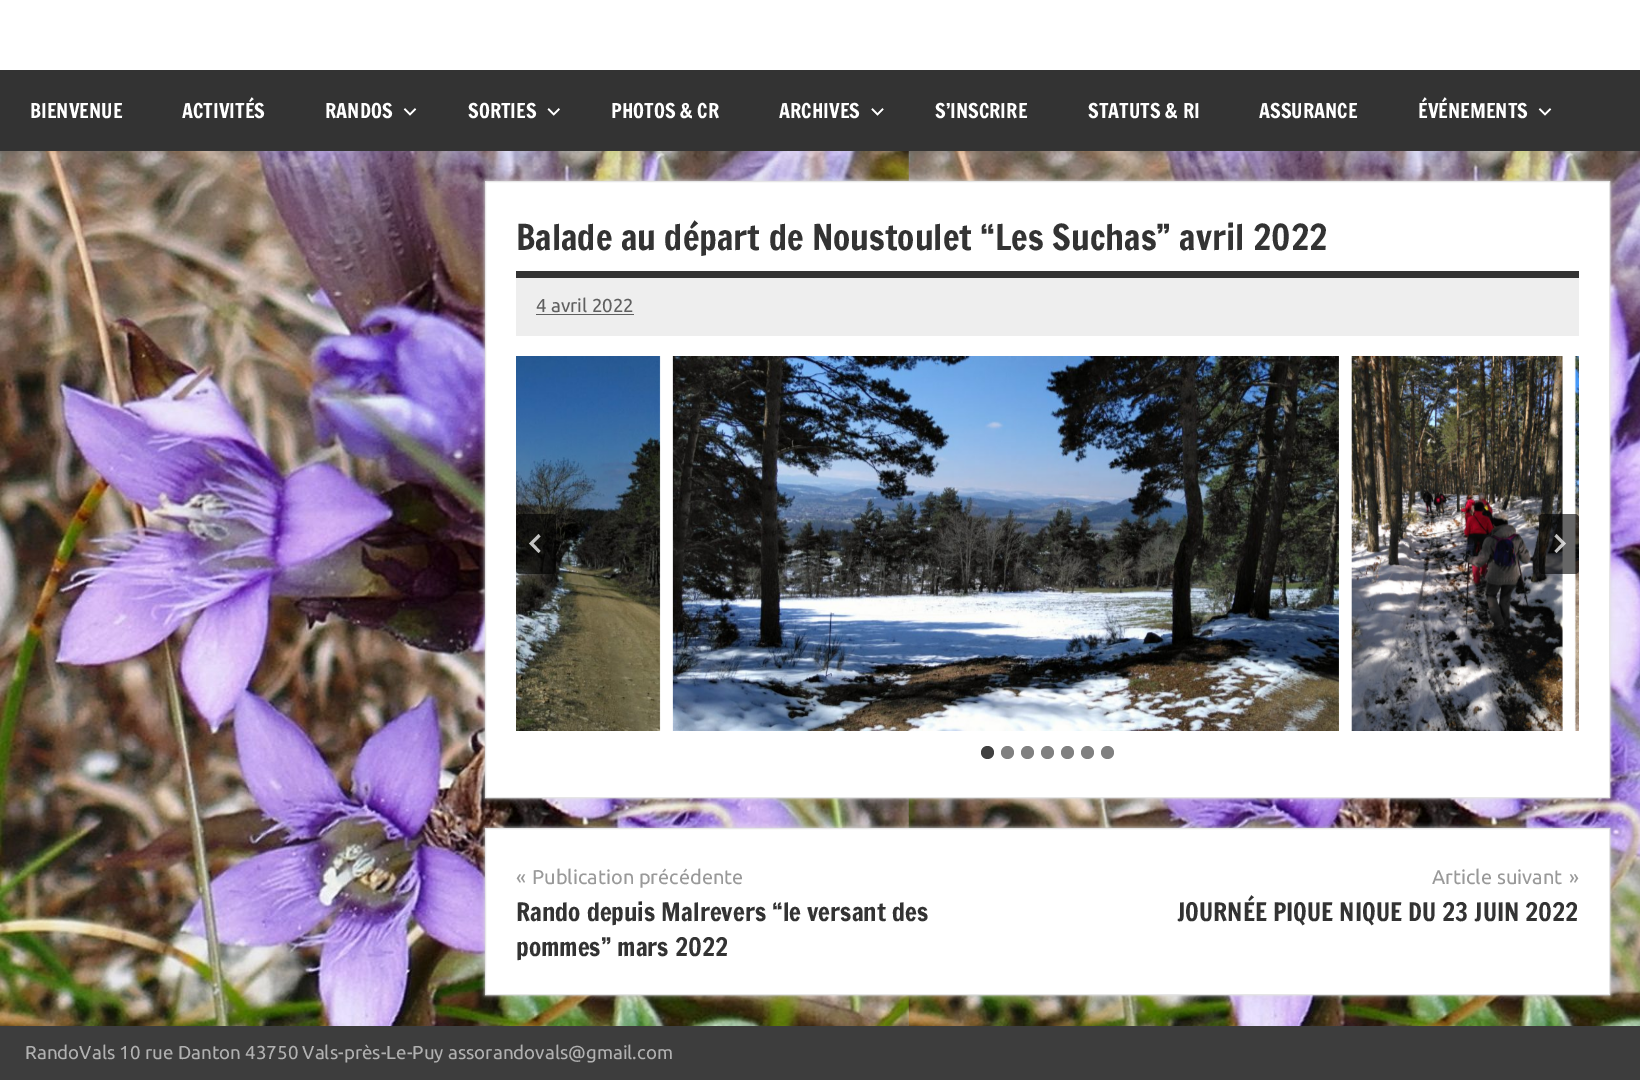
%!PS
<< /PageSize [1640 1080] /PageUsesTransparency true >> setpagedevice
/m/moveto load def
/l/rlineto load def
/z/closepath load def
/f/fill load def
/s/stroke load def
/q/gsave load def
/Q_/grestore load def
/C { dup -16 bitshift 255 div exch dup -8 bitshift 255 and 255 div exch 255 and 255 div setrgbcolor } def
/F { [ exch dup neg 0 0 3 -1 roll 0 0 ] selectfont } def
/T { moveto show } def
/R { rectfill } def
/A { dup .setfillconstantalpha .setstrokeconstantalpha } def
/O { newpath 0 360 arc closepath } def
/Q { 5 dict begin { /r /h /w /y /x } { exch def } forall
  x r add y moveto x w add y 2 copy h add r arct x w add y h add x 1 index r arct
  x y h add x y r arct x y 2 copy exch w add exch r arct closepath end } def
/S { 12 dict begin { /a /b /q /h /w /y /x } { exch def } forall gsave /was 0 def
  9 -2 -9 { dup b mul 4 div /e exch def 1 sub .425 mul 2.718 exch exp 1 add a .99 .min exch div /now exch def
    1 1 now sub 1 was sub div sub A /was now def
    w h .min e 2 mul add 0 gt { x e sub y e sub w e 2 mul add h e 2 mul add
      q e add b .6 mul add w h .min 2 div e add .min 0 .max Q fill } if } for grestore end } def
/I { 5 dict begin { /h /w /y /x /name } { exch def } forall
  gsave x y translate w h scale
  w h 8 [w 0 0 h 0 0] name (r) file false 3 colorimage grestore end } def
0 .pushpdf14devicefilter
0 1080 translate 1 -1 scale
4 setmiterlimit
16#FFFFFF C
0 0 1640 1080 R
(1.rgb) 0 151 1640 875 I
16#333333 C
0 70 1640 81 R
/FrancoisOne-Regular 20 F
16#FFFFFF C
(BIENVENUE) 30 118 T
(ACTIVITÉS) 182 118 T
(RANDOS) 325 118 T
(2.rgb) 403 108 14 8 I
(SORTIES) 468 118 T
(3.rgb) 547 108 13 8 I
(PHOTOS & CR) 611 118 T
(ARCHIVES) 779 118 T
(4.rgb) 871 108 13 8 I
(S’INSCRIRE) 935 118 T
(STATUTS & RI) 1088 118 T
(ASSURANCE) 1259 118 T
(ÉVÉNEMENTS) 1418 118 T
(2.rgb) 1538 108 14 8 I
16#DDDDDD C
485 181 1125 617 0 2.5 1 S
16#FFFFFF C
485.5 181.5 m 1124 0 l 0 616 l -1124 0 l z q f Q_
16#E6E6E6 C
s
16#333333 C
516 271 1063 7 R
/FrancoisOne-Regular 35 F
(Balade au départ de Noustoulet “Les Suchas” avril 2022) 516 250 T
16#EEEEEE C
516 278 1063 58 R
/Ubuntu-Regular 18.75 F
16#5F5F5F C
(4 avril 2022) 536 312 T
536 314 98 1 R
(5.rgb) 516 356 145 375 I
(6.rgb) 672 356 667 375 I
(7.rgb) 1351 356 212 375 I
(8.rgb) 1574 356 5 375 I
0.6 A
16#000000 C
516 514 40 60 4 Q f
0.75 A
16#FFFFFF C
538.5 534 m 2 2.5 l -7 7 l 7 7.5 l -2 2 l -9.5 -9.5 l z f
0.6 A
16#000000 C
1539 514 40 60 4 Q f
0.75 A
16#FFFFFF C
1556.5 534 m -2 2.5 l 7 7 l -7 7.5 l 2 2 l 9.5 -9.5 l z f
1 A
16#404040 C
987.5 752.5 6.5 O f
16#808080 C
1007.5 752.5 6.5 O f
1027.5 752.5 6.5 O f
1047.5 752.5 6.5 O f
1067.5 752.5 6.5 O f
1087.5 752.5 6.5 O f
1107.5 752.5 6.5 O f
16#DDDDDD C
485 828 1125 167 0 2.5 1 S
16#FFFFFF C
485.5 828.5 m 1124 0 l 0 166 l -1124 0 l z q f Q_
16#E6E6E6 C
s
/Ubuntu-Regular 20 F
16#999999 C
(«) 516 884 T
(Publication précédente) 532 884 T
/FrancoisOne-Regular 25 F
16#333333 C
(Rando depuis Malrevers “le versant des) 516 921 T
(pommes” mars 2022) 516 956 T
/Ubuntu-Regular 20 F
16#999999 C
(Article suivant) 1432 884 T
(») 1569 884 T
/FrancoisOne-Regular 25 F
16#333333 C
(JOURNÉE PIQUE NIQUE DU 23 JUIN 2022) 1177 921 T
16#3D3D3D C
0 1026 1640 54 R
/Ubuntu-Regular 18.75 F
16#B1B1B1 C
(RandoVals 10 rue Danton 43750 Vals-près-Le-Puy assorandovals@gmail.com) 25 1059 T
.poppdf14devicefilter showpage
